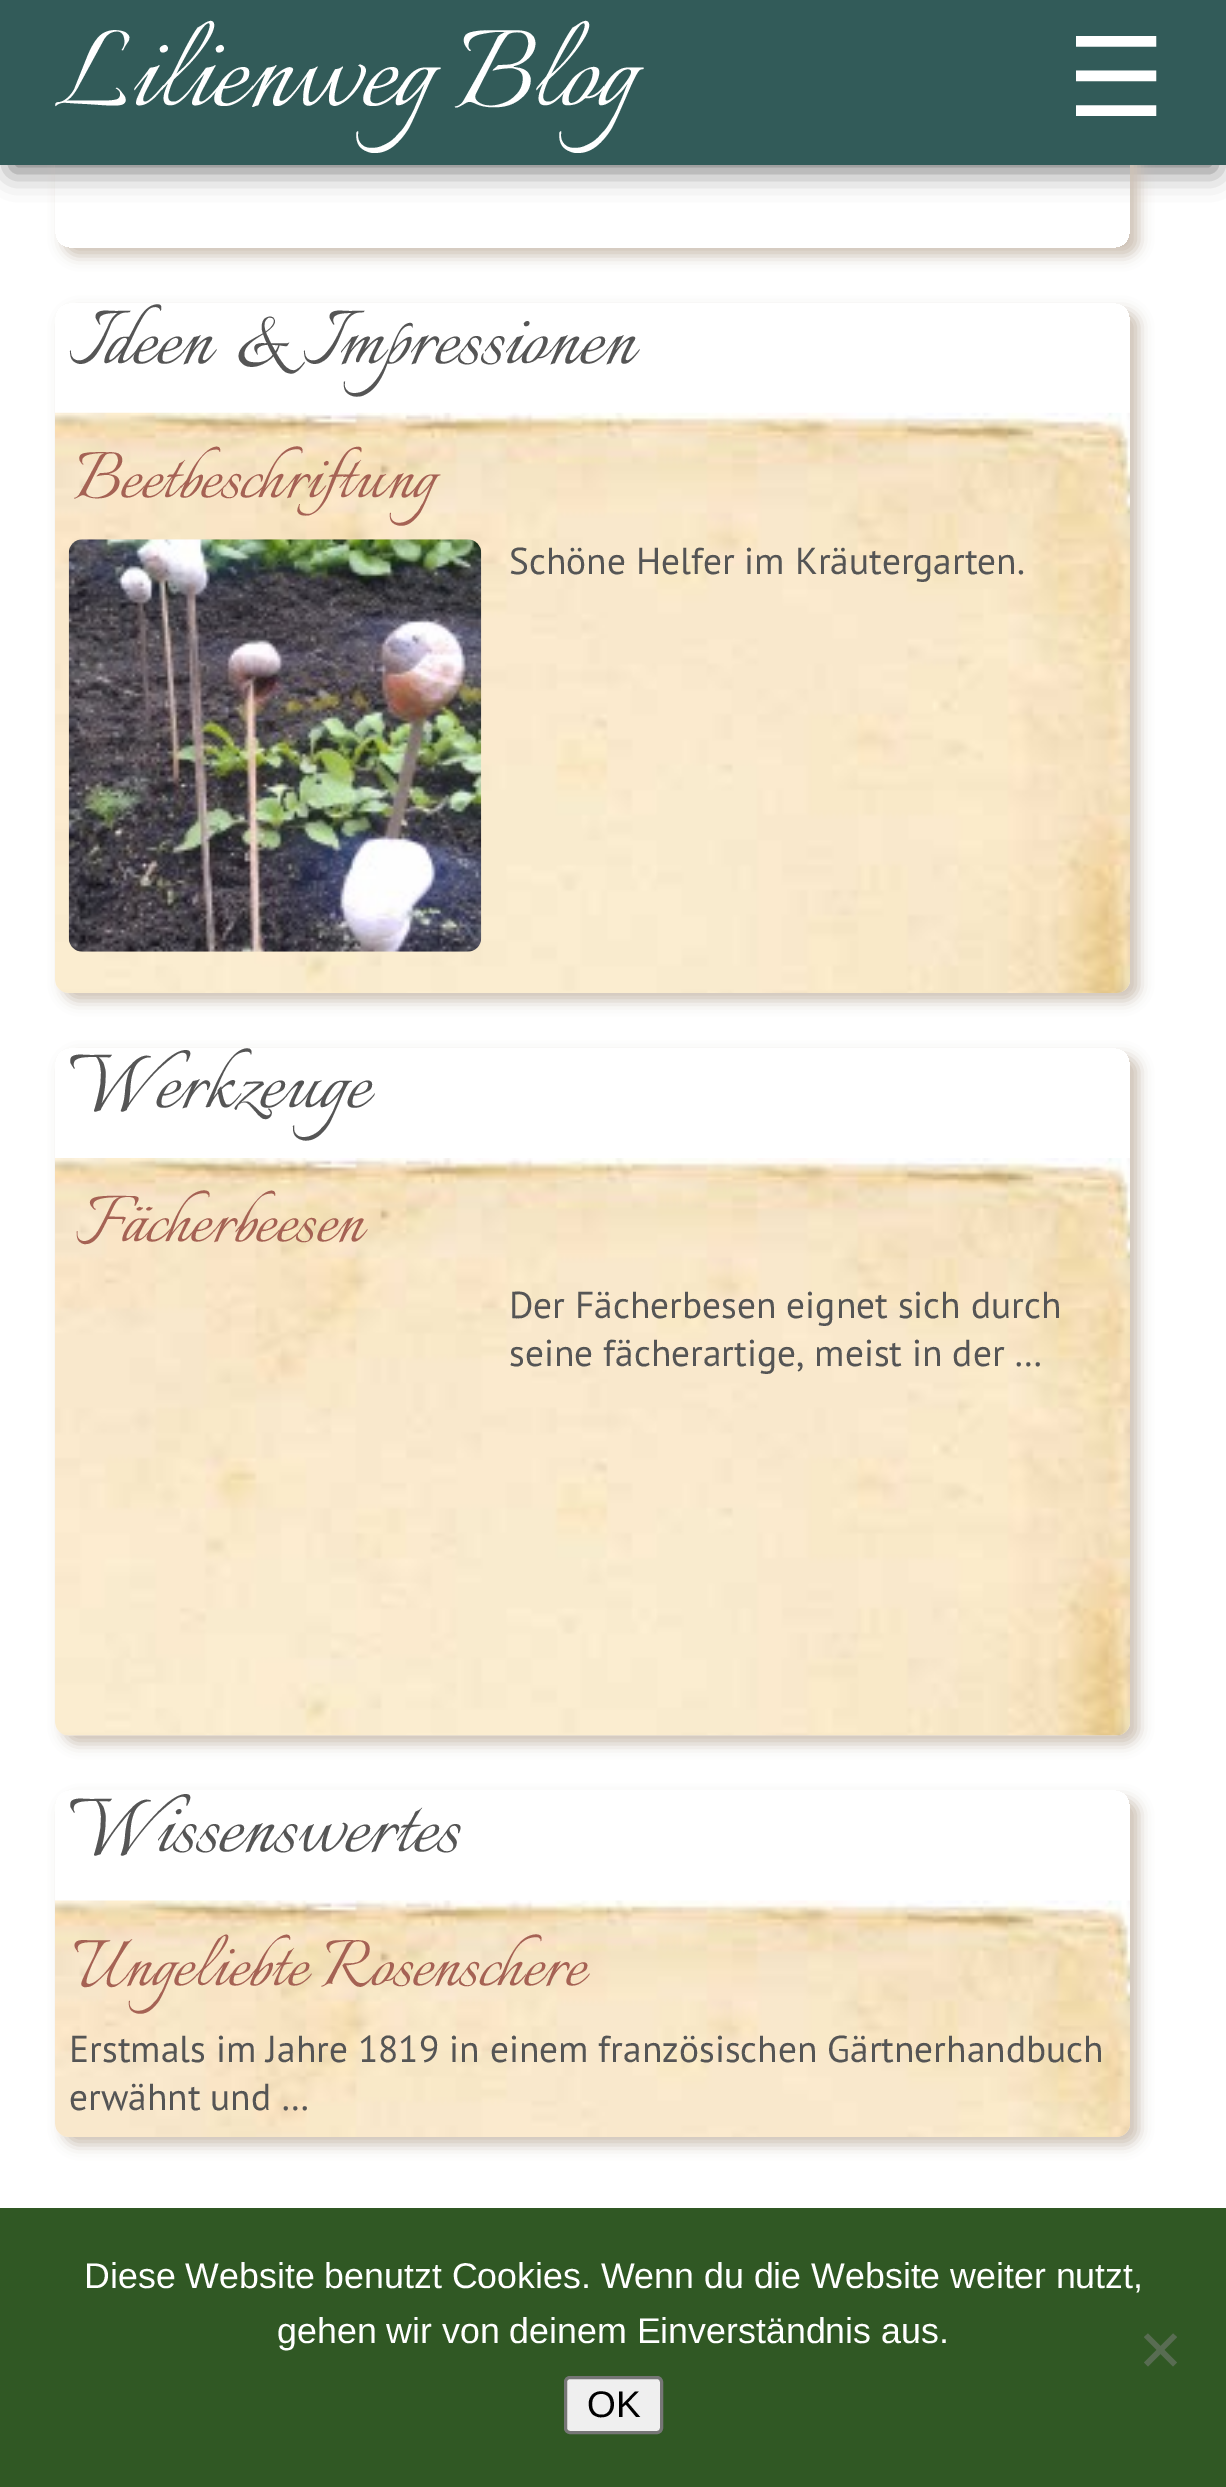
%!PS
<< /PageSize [1226 2487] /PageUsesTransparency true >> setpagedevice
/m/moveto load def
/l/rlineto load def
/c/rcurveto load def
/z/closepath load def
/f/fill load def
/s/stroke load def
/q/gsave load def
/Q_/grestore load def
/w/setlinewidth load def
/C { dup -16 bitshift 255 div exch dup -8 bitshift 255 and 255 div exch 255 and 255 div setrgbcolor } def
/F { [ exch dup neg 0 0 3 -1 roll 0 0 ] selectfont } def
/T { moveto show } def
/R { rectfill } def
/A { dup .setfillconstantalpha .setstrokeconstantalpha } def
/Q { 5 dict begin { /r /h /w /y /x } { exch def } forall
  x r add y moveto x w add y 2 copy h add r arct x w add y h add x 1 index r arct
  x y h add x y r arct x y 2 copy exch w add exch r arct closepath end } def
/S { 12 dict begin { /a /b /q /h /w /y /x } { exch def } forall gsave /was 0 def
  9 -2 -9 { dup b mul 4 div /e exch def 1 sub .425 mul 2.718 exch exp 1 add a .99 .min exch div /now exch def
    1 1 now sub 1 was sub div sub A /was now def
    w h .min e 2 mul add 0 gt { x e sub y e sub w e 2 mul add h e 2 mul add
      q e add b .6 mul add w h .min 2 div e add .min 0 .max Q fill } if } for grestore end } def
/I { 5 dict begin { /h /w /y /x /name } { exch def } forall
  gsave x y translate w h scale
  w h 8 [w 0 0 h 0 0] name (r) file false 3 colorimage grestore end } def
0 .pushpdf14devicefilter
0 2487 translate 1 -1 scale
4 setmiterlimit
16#FFFFFF C
0 0 1226 2487 R
16#000000 C
11 28 1205 143 0 14 .53 S
q
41 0 m 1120 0 l 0 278 l -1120 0 l z 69 -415 m 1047 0 l 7.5 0 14 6.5 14 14 c 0 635 l 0 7.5 -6.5 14 -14 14 c -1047 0 l -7.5 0 -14 -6.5 -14 -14 c 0 -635 l 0 -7.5 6.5 -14 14 -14 c z eoclip newpath
16#CEC2B6 C
63 -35 1076 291 14 7 1 S
Q_
16#325B59 C
0 0 1226 165 R
/Italianno-Regular 137.5 F
16#FFFFFF C
(Lilienweg Blog) 55 105 T
/DejaVuSans-Regular 110 F
(☰) 1067 116 T
q
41 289 m 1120 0 l 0 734 l -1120 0 l z 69 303 m 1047 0 l 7.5 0 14 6.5 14 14 c 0 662 l 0 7.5 -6.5 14 -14 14 c -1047 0 l -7.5 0 -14 -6.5 -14 -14 c 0 -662 l 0 -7.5 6.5 -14 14 -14 c z eoclip newpath
16#CEC2B6 C
63 311 1076 690 14 7 1 S
Q_
(1.rgb) 55 412 1075 581 I
/Italianno-Regular 96.25 F
16#555555 C
(Ideen & Impressionen) 69 363 T
/Italianno-Regular 82.5 F
16#A56254 C
(Beetbeschriftung) 74 497 T
(2.rgb) 68 539 414 413 I
/PTSans-Regular 37.4 F
16#555555 C
(Schöne Helfer im Kräutergarten.) 509 574 T
q
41 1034 m 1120 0 l 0 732 l -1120 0 l z 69 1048 m 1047 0 l 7.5 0 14 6.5 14 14 c 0 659 l 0 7.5 -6.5 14 -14 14 c -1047 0 l -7.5 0 -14 -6.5 -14 -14 c 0 -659 l 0 -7.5 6.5 -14 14 -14 c z eoclip newpath
16#CEC2B6 C
63 1056 1076 688 14 7 1 S
Q_
(3.rgb) 55 1158 1075 578 I
/Italianno-Regular 96.25 F
(Werkzeuge) 69 1107 T
/Italianno-Regular 82.5 F
16#A56254 C
(Fächerbeesen) 74 1241 T
/PTSans-Regular 37.4 F
16#555555 C
(Der Fächerbesen eignet sich durch) 509 1318 T
(seine fächerartige, meist in der …) 509 1366 T
q
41 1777 m 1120 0 l 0 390 l -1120 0 l z 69 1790 m 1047 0 l 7.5 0 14 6.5 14 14 c 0 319 l 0 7.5 -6.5 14 -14 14 c -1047 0 l -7.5 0 -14 -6.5 -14 -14 c 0 -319 l 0 -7.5 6.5 -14 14 -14 c z eoclip newpath
16#CEC2B6 C
63 1799 1076 346 14 7 1 S
Q_
(4.rgb) 55 1900 1075 237 I
/Italianno-Regular 96.25 F
(Wissenswertes) 69 1851 T
/Italianno-Regular 82.5 F
16#A56254 C
(Ungeliebte Rosenschere) 74 1985 T
/PTSans-Regular 37.4 F
16#555555 C
(Erstmals im Jahre 1819 in einem französischen Gärtnerhandbuch) 69 2062 T
(erwähnt und …) 69 2110 T
16#305824 C
0 2208 1226 279 R
/LiberationSans-Regular 35.75 F
16#FFFFFF C
(Diese Website benutzt Cookies. Wenn du die Website weiter nutzt,) 84 2288 T
(gehen wir von deinem Einverständnis aus.) 277 2343 T
16#586C52 C
1173 2333.5 m 4 3.5 l -29 29.5 l -4 -4 l z f
1144 2337 m 4 -3.5 l 29 29 l -4 4 l z f
16#EFEFEF C
565.5 2377.5 96 55 4.5 Q q f Q_
16#767676 C
3 w
s
/LiberationSans-Regular 37 F
16#000000 C
(OK) 587 2417 T
.poppdf14devicefilter showpage
